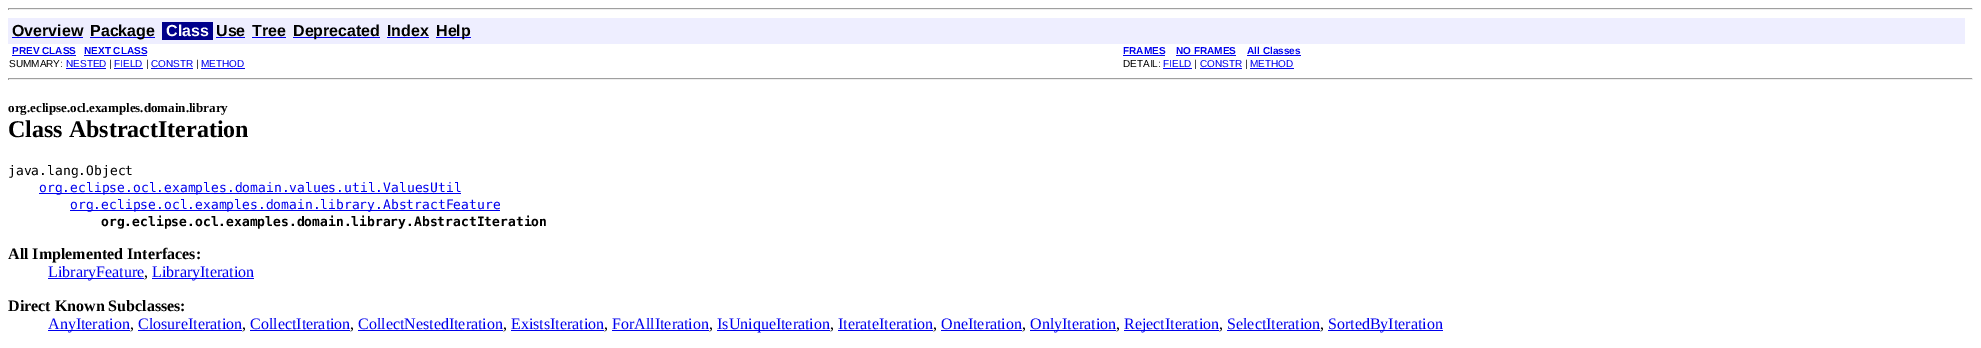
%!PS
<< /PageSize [1981 348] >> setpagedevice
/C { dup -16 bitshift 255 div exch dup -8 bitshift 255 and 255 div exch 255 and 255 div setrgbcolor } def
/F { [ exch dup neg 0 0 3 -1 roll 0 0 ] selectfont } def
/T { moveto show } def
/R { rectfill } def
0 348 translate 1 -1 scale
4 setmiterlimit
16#FFFFFF C
0 0 1981 348 R
16#9F9F9F C
8 8 1965 1 R
16#EEEEEE C
1972 8 1 2 R
8 9 1965 1 R
16#9F9F9F C
8 8 1 2 R
16#EEEEFF C
8 18 1957 26 R
/LiberationSans-Bold 16 F
16#000000 C
(Overview) 12 36 T
16#0000EE C
12 37 71 1 R
90 37 65 1 R
16#000000 C
(Package) 90 36 T
16#00008B C
162 22 51 18 R
16#FFFFFF C
(Class) 166 36 T
16#000000 C
(Use) 216 36 T
16#0000EE C
216 37 29 1 R
16#000000 C
(Tree) 252 36 T
16#0000EE C
252 37 34 1 R
293 37 87 1 R
16#000000 C
(Deprecated) 293 36 T
(Index) 387 36 T
16#0000EE C
387 37 42 1 R
436 37 35 1 R
16#000000 C
(Help) 436 36 T
/LiberationSans-Bold 10 F
16#0000EE C
(PREV CLASS) 12 54 T
12 55 64 1 R
(NEXT CLASS) 84 54 T
84 55 63 1 R
(FRAMES) 1123 54 T
1123 55 42 1 R
(NO FRAMES) 1176 54 T
1176 55 60 1 R
(All Classes) 1247 54 T
1247 55 54 1 R
/LiberationSans-Regular 10 F
16#000000 C
(SUMMARY:) 9 67 T
16#0000EE C
(NESTED) 66 67 T
66 68 40 1 R
16#000000 C
(|) 109 67 T
16#0000EE C
(FIELD) 114 67 T
114 68 29 1 R
16#000000 C
(|) 146 67 T
16#0000EE C
(CONSTR) 151 67 T
151 68 42 1 R
16#000000 C
(|) 196 67 T
16#0000EE C
(METHOD) 201 67 T
201 68 44 1 R
16#000000 C
(DETAIL:) 1123 67 T
16#0000EE C
(FIELD) 1163 67 T
1163 68 29 1 R
16#000000 C
(|) 1194 67 T
16#0000EE C
(CONSTR) 1200 67 T
1200 68 42 1 R
16#000000 C
(|) 1245 67 T
16#0000EE C
(METHOD) 1250 67 T
1250 68 44 1 R
16#9F9F9F C
8 78 1965 1 R
16#EEEEEE C
1972 78 1 2 R
8 79 1965 1 R
16#9F9F9F C
8 78 1 2 R
/LiberationSerif-Bold 13 F
16#000000 C
(org.eclipse.ocl.examples.domain.library) 8 112 T
/LiberationSerif-Bold 24 F
(Class AbstractIteration) 8 137 T
/DejaVuSansMono-Regular 13 F
(java.lang.Object) 8 175 T
16#0000EE C
39 193 422 1 R
(org.eclipse.ocl.examples.domain.values.util.ValuesUtil) 39 192 T
70 210 430 1 R
(org.eclipse.ocl.examples.domain.library.AbstractFeature) 70 209 T
/DejaVuSansMono-Bold 13 F
16#000000 C
(org.eclipse.ocl.examples.domain.library.AbstractIteration) 101 226 T
/LiberationSerif-Bold 16 F
(All Implemented Interfaces:) 8 259 T
16#0000EE C
48 278 96 1 R
/LiberationSerif-Regular 16 F
(LibraryFeature) 48 277 T
16#000000 C
(,) 144 277 T
16#0000EE C
152 278 102 1 R
(LibraryIteration) 152 277 T
/LiberationSerif-Bold 16 F
16#000000 C
(Direct Known Subclasses:) 8 311 T
16#0000EE C
48 330 82 1 R
/LiberationSerif-Regular 16 F
(AnyIteration) 48 329 T
16#000000 C
(,) 130 329 T
16#0000EE C
(ClosureIteration) 138 329 T
138 330 104 1 R
16#000000 C
(,) 242 329 T
16#0000EE C
(CollectIteration) 250 329 T
250 330 100 1 R
16#000000 C
(,) 350 329 T
16#0000EE C
(CollectNestedIteration) 358 329 T
358 330 145 1 R
16#000000 C
(,) 503 329 T
16#0000EE C
(ExistsIteration) 511 329 T
511 330 93 1 R
16#000000 C
(,) 604 329 T
16#0000EE C
(ForAllIteration) 612 329 T
612 330 97 1 R
16#000000 C
(,) 709 329 T
16#0000EE C
717 330 113 1 R
(IsUniqueIteration) 717 329 T
16#000000 C
(,) 830 329 T
16#0000EE C
(IterateIteration) 838 329 T
838 330 95 1 R
16#000000 C
(,) 933 329 T
16#0000EE C
(OneIteration) 941 329 T
941 330 81 1 R
16#000000 C
(,) 1022 329 T
16#0000EE C
1030 330 86 1 R
(OnlyIteration) 1030 329 T
16#000000 C
(,) 1116 329 T
16#0000EE C
1124 330 95 1 R
(RejectIteration) 1124 329 T
16#000000 C
(,) 1219 329 T
16#0000EE C
(SelectIteration) 1227 329 T
1227 330 93 1 R
16#000000 C
(,) 1320 329 T
16#0000EE C
1328 330 115 1 R
(SortedByIteration) 1328 329 T
showpage
